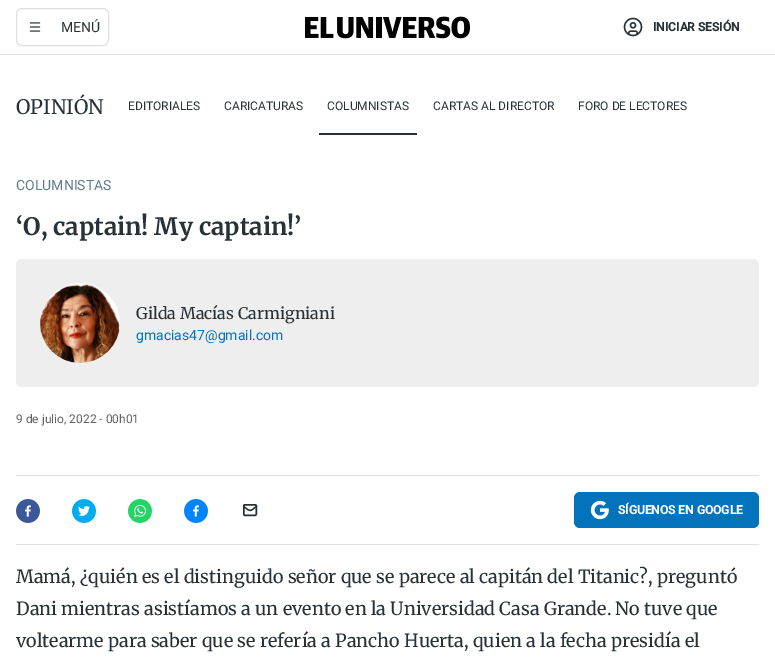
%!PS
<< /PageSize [775 669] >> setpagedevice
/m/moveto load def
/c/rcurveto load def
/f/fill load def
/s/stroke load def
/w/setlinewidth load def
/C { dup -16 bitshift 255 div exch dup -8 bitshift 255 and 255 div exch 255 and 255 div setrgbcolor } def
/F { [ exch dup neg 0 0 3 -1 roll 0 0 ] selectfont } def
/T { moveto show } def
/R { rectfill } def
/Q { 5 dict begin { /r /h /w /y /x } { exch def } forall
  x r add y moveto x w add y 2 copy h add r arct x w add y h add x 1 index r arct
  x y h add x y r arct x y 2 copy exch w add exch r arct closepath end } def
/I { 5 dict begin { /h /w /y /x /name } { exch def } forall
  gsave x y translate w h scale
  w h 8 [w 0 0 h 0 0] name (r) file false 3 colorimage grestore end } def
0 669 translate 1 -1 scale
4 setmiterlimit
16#FFFFFF C
0 0 775 669 R
16#E0E0E0 C
0 54 775 1 R
16.5 8.5 92 37 5.5 Q s
(1.rgb) 29 22 12 10 I
/Roboto-Regular 14 F
16#263238 C
(MENÚ) 61 32 T
(2.rgb) 305 16 165 23 I
(3.rgb) 623 17 20 20 I
/Roboto-Bold 12 F
(INICIAR SESIÓN) 653 31 T
/Merriweather-Regular 20 F
(OPINIÓN) 16 114 T
/Roboto-Regular 12 F
(EDITORIALES) 128 110 T
(CARICATURAS) 224 110 T
319 133 98 2 R
(COLUMNISTAS) 327 110 T
(CARTAS AL DIRECTOR) 433 110 T
(FORO DE LECTORES) 578 110 T
/Roboto-Regular 14 F
16#607D8B C
(COLUMNISTAS) 16 190 T
/Merriweather-Bold 24 F
16#263238 C
(‘O, captain! My captain!’) 16 235 T
16#EEEEEE C
16 259 743 128 6 Q f
(4.rgb) 40 283 80 80 I
/Merriweather-Regular 16 F
16#263238 C
(Gilda Macías Carmigniani) 136 319 T
/Roboto-Regular 14 F
16#0374BB C
(gmacias47@gmail.com) 136 340 T
/Roboto-Regular 12 F
16#616161 C
(9 de julio, 2022 - 00h01) 16 423 T
16#E0E0E0 C
16 475 743 1 R
(5.rgb) 16 499 24 24 I
(6.rgb) 72 499 24 24 I
(7.rgb) 128 499 24 24 I
(8.rgb) 184 499 24 24 I
16#263238 C
1.3 w
1 setlinecap
1 setlinejoin
256.5 506.5 m -8 5.5 -5 5.5 -13 0 c s
1.5 w
0 setlinecap
0 setlinejoin
243.75 504.75 12.5 10.5 1.25 Q s
16#0374BB C
574 492 185 36 6 Q f
(9.rgb) 590 500 19 20 I
/Roboto-Bold 12 F
16#FFFFFF C
(SÍGUENOS EN GOOGLE) 618 514 T
16#E0E0E0 C
16 544 743 1 R
/Merriweather-Regular 18 F
16#263238 C
(Mamá, ¿quién es el distinguido señor que se parece al capitán del Titanic?, preguntó) 16 583 T
(Dani mientras asistíamos a un evento en la Universidad Casa Grande. No tuve que) 16 615 T
(voltearme para saber que se refería a Pancho Huerta, quien a la fecha presidía el) 16 647 T
showpage
